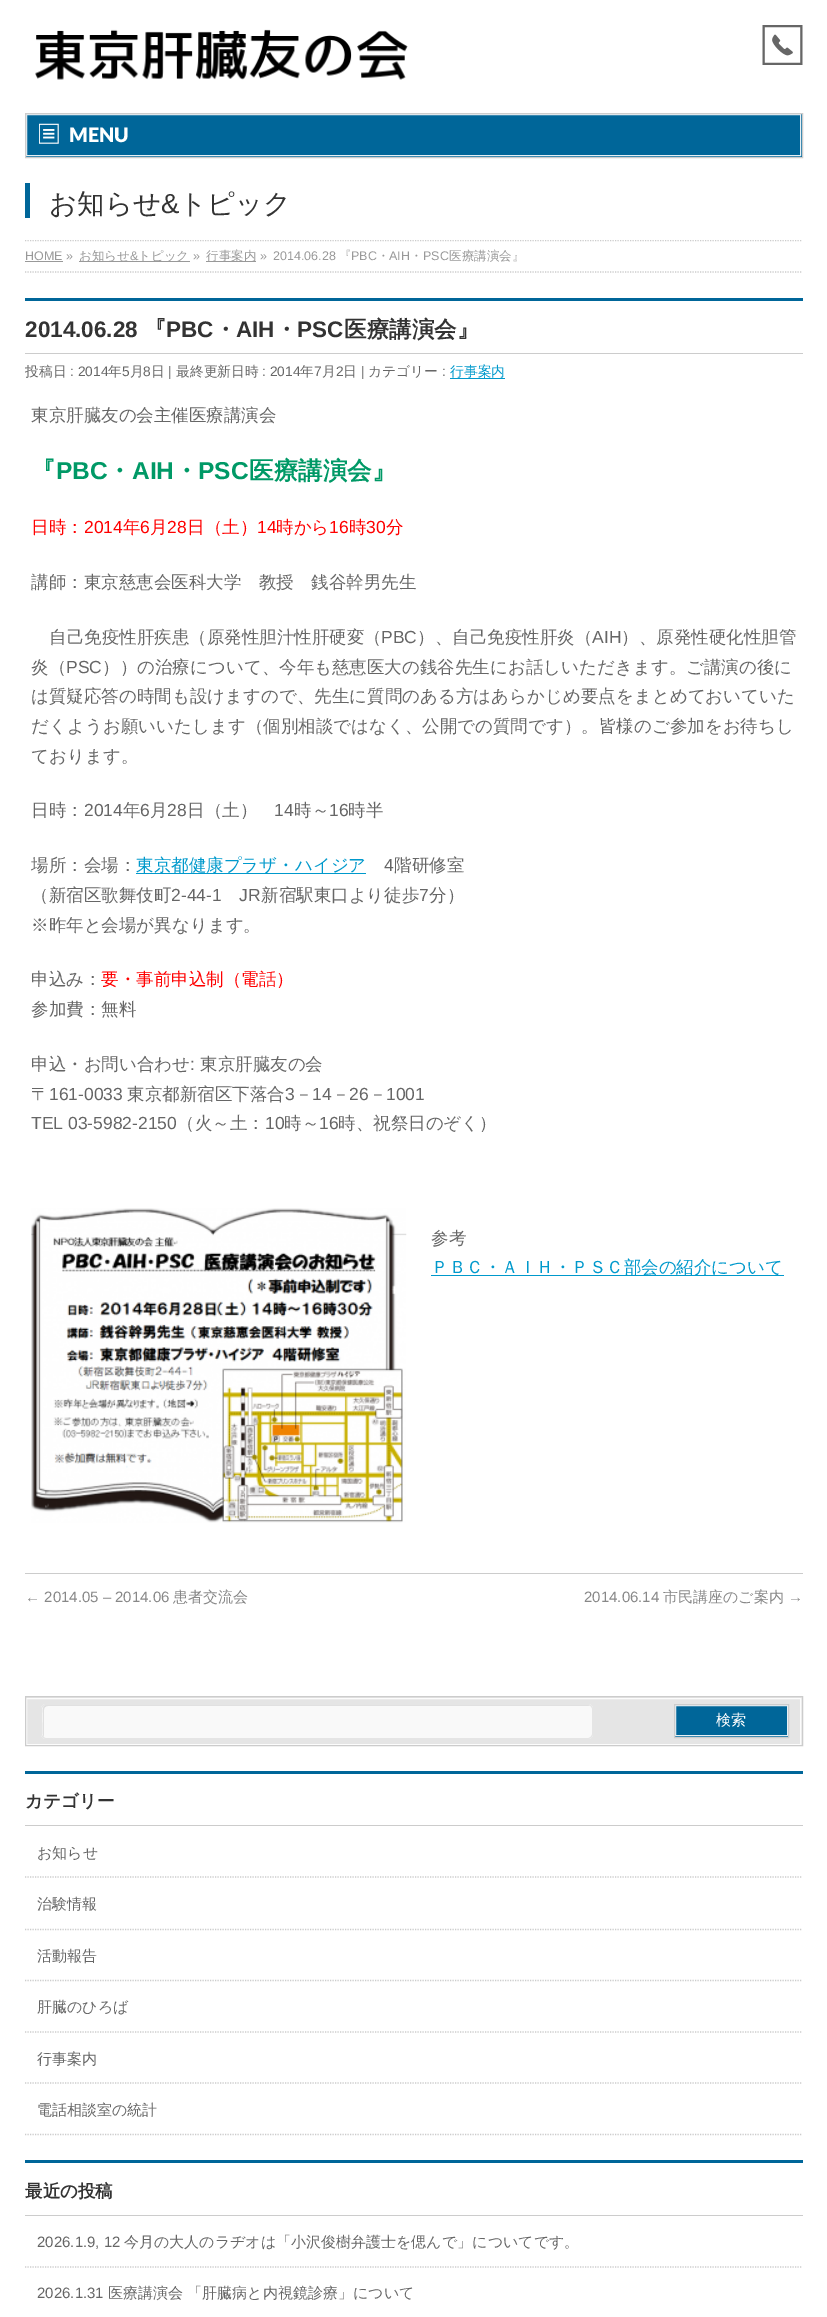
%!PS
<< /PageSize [827 2317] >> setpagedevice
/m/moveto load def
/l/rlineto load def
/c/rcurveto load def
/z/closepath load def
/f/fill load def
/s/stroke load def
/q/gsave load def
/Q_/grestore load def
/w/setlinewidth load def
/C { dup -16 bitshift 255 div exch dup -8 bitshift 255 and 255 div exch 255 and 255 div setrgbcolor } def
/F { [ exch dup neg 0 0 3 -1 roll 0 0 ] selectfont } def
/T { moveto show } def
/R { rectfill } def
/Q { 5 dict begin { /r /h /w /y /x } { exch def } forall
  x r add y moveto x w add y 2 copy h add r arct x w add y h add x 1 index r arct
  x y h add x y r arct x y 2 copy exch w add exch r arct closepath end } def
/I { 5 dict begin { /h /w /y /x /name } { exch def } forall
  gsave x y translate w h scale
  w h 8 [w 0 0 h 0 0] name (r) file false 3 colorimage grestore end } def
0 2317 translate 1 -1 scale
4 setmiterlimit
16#FFFFFF C
0 0 827 2317 R
(1.rgb) 35 29 373 51 I
(2.rgb) 762 25 41 40 I
16#006699 C
26 114 776 43 R
16#E6F0F5 C
26.5 114.5 774 41 rectstroke
16#CCCCCC C
25.5 113.5 777 44 rectstroke
(3.rgb) 39 123 20 21 I
/Lato-Black 20 F
16#FFFFFF C
(MENU) 69 142 T
16#006699 C
25 183 5 35 R
/WenQuanYiZenHei-Medium 27.5 F
16#333333 C
(お知らせ) 49 213 T
/LiberationSans-Regular 27.5 F
(&) 161 213 T
/WenQuanYiZenHei-Medium 27.5 F
(トピック) 179 213 T
q
0 240 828 33 rectclip
16#CCCCCC C
1.2 w
[1.25 1.25] 0 setdash
25 240.5 m 777.5 0 l s
Q_
16#CCCCCC C
1.2 w
[1.25 1.25] 0 setdash
25 272 m 777.5 0 l s
/LiberationSans-Regular 12.5 F
16#999999 C
(HOME ») 25 260 T
25 261 38 1 R
79 261 111 1 R
/WenQuanYiZenHei-Medium 12.5 F
(お知らせ) 79 260 T
/LiberationSans-Regular 12.5 F
(&) 130 260 T
/WenQuanYiZenHei-Medium 12.5 F
(トピック) 138 260 T
/LiberationSans-Regular 12.5 F
(») 193 260 T
206 261 50 1 R
/WenQuanYiZenHei-Medium 12.5 F
(行事案内) 206 260 T
/LiberationSans-Regular 12.5 F
(») 260 260 T
(2014.06.28) 273 260 T
/WenQuanYiZenHei-Medium 12.5 F
(『) 339 260 T
/LiberationSans-Regular 12.5 F
(PBC) 351 260 T
/WenQuanYiZenHei-Medium 12.5 F
(・) 377 260 T
/LiberationSans-Regular 12.5 F
(AIH) 389 260 T
/WenQuanYiZenHei-Medium 12.5 F
(・) 410 260 T
/LiberationSans-Regular 12.5 F
(PSC) 423 260 T
/WenQuanYiZenHei-Medium 12.5 F
(医療講演会』) 449 260 T
16#006699 C
25 298 778 3 R
16#CCCCCC C
25 353 778 1 R
/LiberationSans-Bold 22.5 F
16#333333 C
(2014.06.28) 25 337 T
/WenQuanYiZenHei-Bold 22.5 F
(『) 144 337 T
/LiberationSans-Bold 22.5 F
(PBC) 166 337 T
/WenQuanYiZenHei-Bold 22.5 F
(・) 214 337 T
/LiberationSans-Bold 22.5 F
(AIH) 236 337 T
/WenQuanYiZenHei-Bold 22.5 F
(・) 275 337 T
/LiberationSans-Bold 22.5 F
(PSC) 297 337 T
/WenQuanYiZenHei-Bold 22.5 F
(医療講演会』) 344 337 T
/WenQuanYiZenHei-Medium 13.75 F
16#666666 C
(投稿日) 25 376 T
/LiberationSans-Regular 13.75 F
(: 2014) 70 376 T
/WenQuanYiZenHei-Medium 13.75 F
(年) 108 376 T
/LiberationSans-Regular 13.75 F
(5) 122 376 T
/WenQuanYiZenHei-Medium 13.75 F
(月) 130 376 T
/LiberationSans-Regular 13.75 F
(8) 143 376 T
/WenQuanYiZenHei-Medium 13.75 F
(日) 151 376 T
/LiberationSans-Regular 13.75 F
(|) 168 376 T
/WenQuanYiZenHei-Medium 13.75 F
(最終更新日時) 176 376 T
/LiberationSans-Regular 13.75 F
(: 2014) 262 376 T
/WenQuanYiZenHei-Medium 13.75 F
(年) 300 376 T
/LiberationSans-Regular 13.75 F
(7) 314 376 T
/WenQuanYiZenHei-Medium 13.75 F
(月) 322 376 T
/LiberationSans-Regular 13.75 F
(2) 336 376 T
/WenQuanYiZenHei-Medium 13.75 F
(日) 343 376 T
/LiberationSans-Regular 13.75 F
(|) 361 376 T
/WenQuanYiZenHei-Medium 13.75 F
(カテゴリー) 368 376 T
/LiberationSans-Regular 13.75 F
(:) 442 376 T
/WenQuanYiZenHei-Medium 13.75 F
16#0099CC C
(行事案内) 450 376 T
450 378 55 1 R
/WenQuanYiZenHei-Medium 17.5 F
16#666666 C
(東京肝臓友の会主催医療講演会) 31 421 T
/WenQuanYiZenHei-Bold 24.5 F
16#009966 C
(『) 31 479 T
/LiberationSans-Bold 24.5 F
(PBC) 56 479 T
/WenQuanYiZenHei-Bold 24.5 F
(・) 107 479 T
/LiberationSans-Bold 24.5 F
(AIH) 132 479 T
/WenQuanYiZenHei-Bold 24.5 F
(・) 174 479 T
/LiberationSans-Bold 24.5 F
(PSC) 198 479 T
/WenQuanYiZenHei-Bold 24.5 F
(医療講演会』) 249 479 T
/WenQuanYiZenHei-Medium 17.5 F
16#FF0000 C
(日時：) 31 533 T
/LiberationSans-Regular 17.5 F
(2014) 84 533 T
/WenQuanYiZenHei-Medium 17.5 F
(年) 123 533 T
/LiberationSans-Regular 17.5 F
(6) 140 533 T
/WenQuanYiZenHei-Medium 17.5 F
(月) 150 533 T
/LiberationSans-Regular 17.5 F
(28) 167 533 T
/WenQuanYiZenHei-Medium 17.5 F
(日（土）) 187 533 T
/LiberationSans-Regular 17.5 F
(14) 257 533 T
/WenQuanYiZenHei-Medium 17.5 F
(時から) 276 533 T
/LiberationSans-Regular 17.5 F
(16) 329 533 T
/WenQuanYiZenHei-Medium 17.5 F
(時) 349 533 T
/LiberationSans-Regular 17.5 F
(30) 366 533 T
/WenQuanYiZenHei-Medium 17.5 F
(分) 386 533 T
16#666666 C
(講師：東京慈恵会医科大学　教授　銭谷幹男先生) 31 588 T
(自己免疫性肝疾患（原発性胆汁性肝硬変（) 49 643 T
/LiberationSans-Regular 17.5 F
(PBC) 381 643 T
/WenQuanYiZenHei-Medium 17.5 F
(）、自己免疫性肝炎（) 417 643 T
/LiberationSans-Regular 17.5 F
(AIH) 592 643 T
/WenQuanYiZenHei-Medium 17.5 F
(）、原発性硬化性胆管) 621 643 T
(炎（) 31 673 T
/LiberationSans-Regular 17.5 F
(PSC) 66 673 T
/WenQuanYiZenHei-Medium 17.5 F
(））の治療について、今年も慈恵医大の銭谷先生にお話しいただきます。ご講演の後に) 102 673 T
(は質疑応答の時間も設けますので、先生に質問のある方はあらかじめ要点をまとめておいていた) 31 702 T
(だくようお願いいたします（個別相談ではなく、公開での質問です）。皆様のご参加をお待ちし) 31 732 T
(ております。) 31 762 T
(日時：) 31 816 T
/LiberationSans-Regular 17.5 F
(2014) 84 816 T
/WenQuanYiZenHei-Medium 17.5 F
(年) 123 816 T
/LiberationSans-Regular 17.5 F
(6) 140 816 T
/WenQuanYiZenHei-Medium 17.5 F
(月) 150 816 T
/LiberationSans-Regular 17.5 F
(28) 167 816 T
/WenQuanYiZenHei-Medium 17.5 F
(日（土）) 187 816 T
/LiberationSans-Regular 17.5 F
(14) 274 816 T
/WenQuanYiZenHei-Medium 17.5 F
(時～) 294 816 T
/LiberationSans-Regular 17.5 F
(16) 329 816 T
/WenQuanYiZenHei-Medium 17.5 F
(時半) 348 816 T
(場所：会場：) 31 871 T
16#0099CC C
136 873 230 1 R
(東京都健康プラザ・ハイジア) 136 871 T
/LiberationSans-Regular 17.5 F
16#666666 C
(4) 384 871 T
/WenQuanYiZenHei-Medium 17.5 F
(階研修室) 394 871 T
(（新宿区歌舞伎町) 31 901 T
/LiberationSans-Regular 17.5 F
(2-44-1) 171 901 T
(JR) 239 901 T
/WenQuanYiZenHei-Medium 17.5 F
(新宿駅東口より徒歩) 261 901 T
/LiberationSans-Regular 17.5 F
(7) 419 901 T
/WenQuanYiZenHei-Medium 17.5 F
(分）) 429 901 T
(※昨年と会場が異なります。) 31 931 T
(申込み：) 31 985 T
16#FF0000 C
(要・事前申込制（電話）) 101 985 T
16#666666 C
(参加費：無料) 31 1015 T
(申込・お問い合わせ) 31 1070 T
/LiberationSans-Regular 17.5 F
(:) 190 1070 T
/WenQuanYiZenHei-Medium 17.5 F
(東京肝臓友の会) 200 1070 T
(〒) 31 1100 T
/LiberationSans-Regular 17.5 F
(161-0033) 49 1100 T
/WenQuanYiZenHei-Medium 17.5 F
(東京都新宿区下落合) 127 1100 T
/LiberationSans-Regular 17.5 F
(3) 285 1100 T
/WenQuanYiZenHei-Medium 17.5 F
(－) 295 1100 T
/LiberationSans-Regular 17.5 F
(14) 312 1100 T
/WenQuanYiZenHei-Medium 17.5 F
(－) 332 1100 T
/LiberationSans-Regular 17.5 F
(26) 349 1100 T
/WenQuanYiZenHei-Medium 17.5 F
(－) 369 1100 T
/LiberationSans-Regular 17.5 F
(1001) 386 1100 T
(TEL 03-5982-2150) 31 1129 T
/WenQuanYiZenHei-Medium 17.5 F
(（火～土：) 177 1129 T
/LiberationSans-Regular 17.5 F
(10) 265 1129 T
/WenQuanYiZenHei-Medium 17.5 F
(時～) 284 1129 T
/LiberationSans-Regular 17.5 F
(16) 319 1129 T
/WenQuanYiZenHei-Medium 17.5 F
(時、祝祭日のぞく）) 338 1129 T
(4.rgb) 31 1208 376 315 I
(参考) 431 1244 T
16#0099CC C
431 1275 353 1 R
(ＰＢＣ・ＡＩＨ・ＰＳＣ部会の紹介について) 431 1273 T
16#CCCCCC C
25 1573 778 1 R
/LiberationSans-Regular 15 F
16#888888 C
(← 2014.05 – 2014.06) 25 1602 T
/WenQuanYiZenHei-Medium 15 F
(患者交流会) 173 1602 T
/LiberationSans-Regular 15 F
(2014.06.14) 584 1602 T
/WenQuanYiZenHei-Medium 15 F
(市民講座のご案内) 663 1602 T
/LiberationSans-Regular 15 F
(→) 788 1602 T
16#E5E5E5 C
26 1697 776 48 R
16#FCFCFC C
1 w
[] 0 setdash
26.5 1698.5 774 46 rectstroke
16#CCCCCC C
25.5 1696.5 777 49 rectstroke
16#F9F9F9 C
41 1704 552 35 5 Q f
16#E0E0E0 C
48 1706 m 542 0 l -2 -1 l -541 0 l -5 0 -4 5 -4 8 c 0 9 l 0 3 -1 13 1 15 c 0 -2 l 0 -25 l 0 -2 1 -4 4 -4 c z f
16#E5E5E5 C
41.5 1704.5 551 34 4.5 Q s
16#006699 C
675 1706 113 31 R
16#E6F0F5 C
675.5 1705.5 112 30 rectstroke
16#CCCCCC C
674.5 1704.5 114 33 rectstroke
/WenQuanYiZenHei-Medium 15 F
16#FFFFFF C
(検索) 716 1725 T
16#006699 C
25 1771 778 3 R
16#CCCCCC C
25 1825 778 1 R
/WenQuanYiZenHei-Bold 17.5 F
16#333333 C
(カテゴリー) 25 1807 T
16#CCCCCC C
1.2 w
[1.25 1.25] 0 setdash
25 1877 m 777.5 0 l s
/WenQuanYiZenHei-Medium 15 F
16#666666 C
(お知らせ) 37 1858 T
16#CCCCCC C
25 1929.5 m 777.5 0 l s
16#666666 C
(治験情報) 37 1909 T
16#CCCCCC C
25 1980.5 m 777.5 0 l s
16#666666 C
(活動報告) 37 1961 T
16#CCCCCC C
25 2032 m 777.5 0 l s
16#666666 C
(肝臓のひろば) 37 2012 T
16#CCCCCC C
25 2083 m 777.5 0 l s
16#666666 C
(行事案内) 37 2064 T
16#CCCCCC C
25 2134.5 m 777.5 0 l s
16#666666 C
(電話相談室の統計) 37 2115 T
16#006699 C
25 2160 778 3 R
16#CCCCCC C
25 2215 778 1 R
/WenQuanYiZenHei-Bold 17.5 F
16#333333 C
(最近の投稿) 25 2197 T
16#CCCCCC C
25 2267 m 777.5 0 l s
/LiberationSans-Regular 15 F
16#666666 C
(2026.1.9, 12) 37 2247 T
/WenQuanYiZenHei-Medium 15 F
(今月の大人のラヂオは「小沢俊樹弁護士を偲んで」についてです。) 124 2247 T
/LiberationSans-Regular 15 F
(2026.1.31) 37 2298 T
/WenQuanYiZenHei-Medium 15 F
(医療講演会 「肝臓病と内視鏡診療」について) 108 2298 T
showpage
